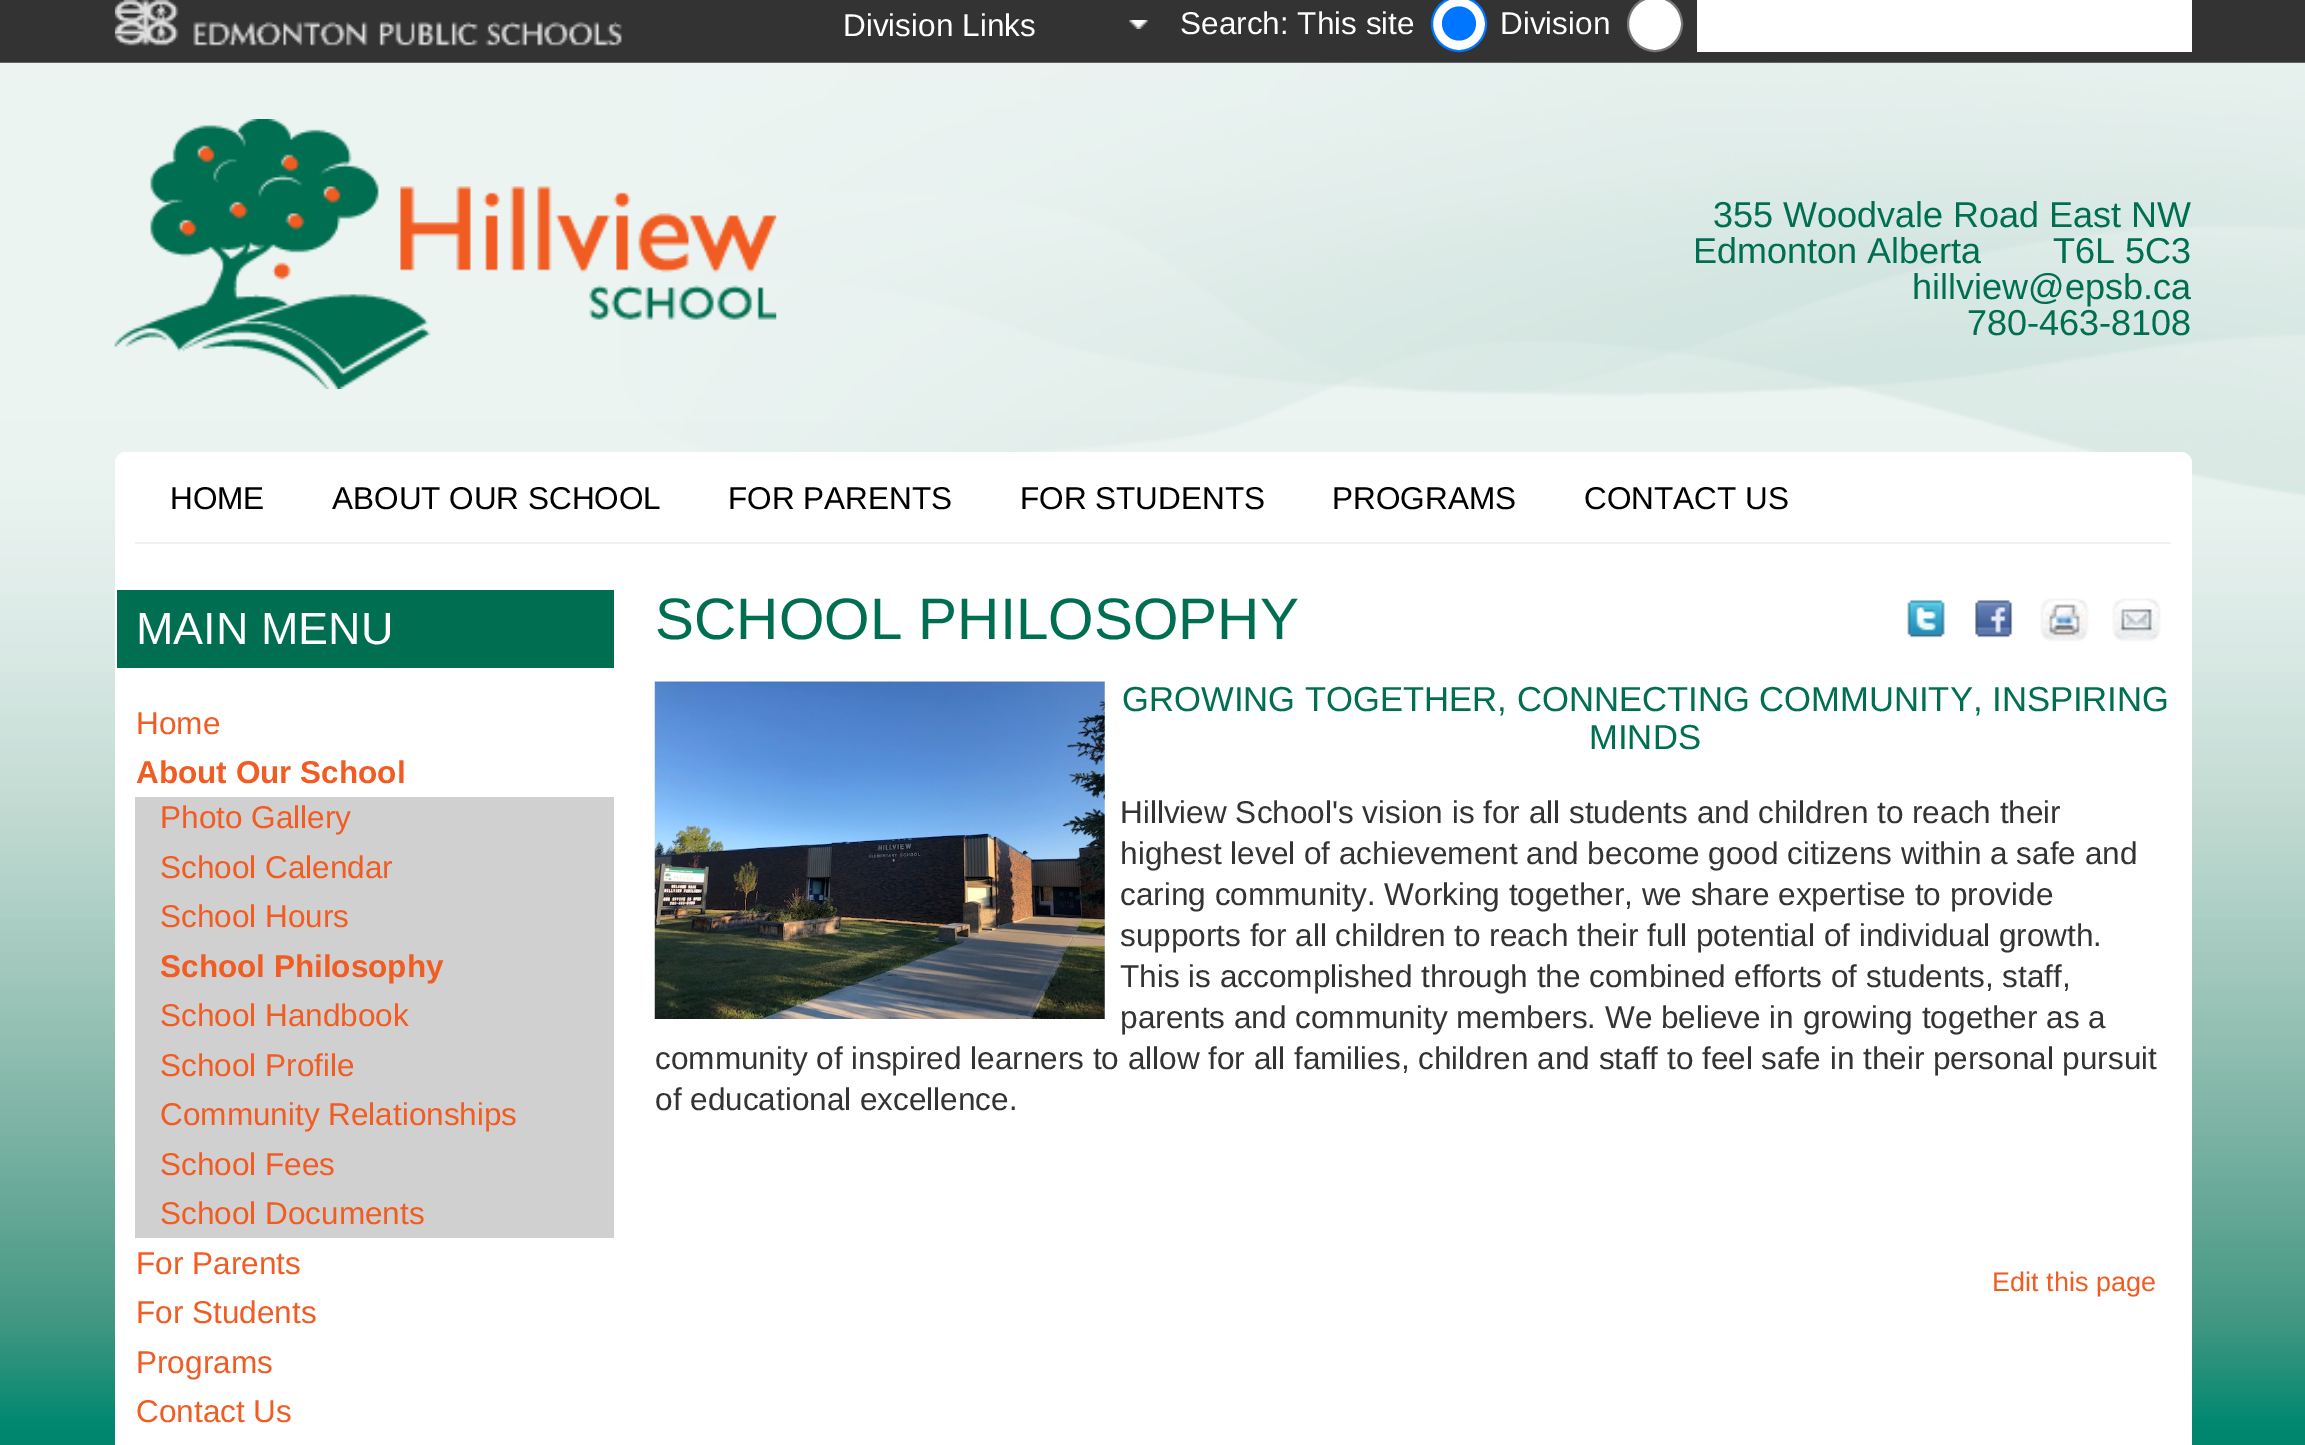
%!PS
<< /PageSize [2305 1445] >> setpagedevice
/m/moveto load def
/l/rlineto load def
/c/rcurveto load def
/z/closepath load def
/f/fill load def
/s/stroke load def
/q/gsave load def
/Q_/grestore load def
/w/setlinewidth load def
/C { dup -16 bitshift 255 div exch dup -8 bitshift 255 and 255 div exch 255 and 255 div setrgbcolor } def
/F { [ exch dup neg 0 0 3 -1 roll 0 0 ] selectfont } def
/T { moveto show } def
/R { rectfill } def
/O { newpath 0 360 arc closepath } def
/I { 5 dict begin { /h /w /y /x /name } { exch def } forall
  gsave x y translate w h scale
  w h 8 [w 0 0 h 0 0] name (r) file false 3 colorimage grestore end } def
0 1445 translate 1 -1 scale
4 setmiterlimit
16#333333 C
0 0 2305 1445 R
(1.rgb) 114 0 508 46 I
(2.rgb) 1129 20 19 9 I
/LiberationSans-Regular 31.5 F
16#FFFFFF C
(Division Links) 843 36 T
(Search: This site) 1180 34 T
1459 24 27 O q f Q_
16#0075FF C
2 w
s
1459 23.5 17 O f
16#FFFFFF C
(Division) 1500 34 T
1655 24 27 O q f Q_
16#767676 C
s
16#FFFFFF C
1697 0 495 52 R
(9.rgb) 0 62 2305 1383 I
(3.rgb) 114 119 663 270 I
/LiberationSans-Regular 36 F
16#006F51 C
(355 Woodvale Road East NW) 1713 227 T
(Edmonton Alberta  T6L 5C3) 1693 263 T
(hillview@epsb.ca) 1912 299 T
(780-463-8108) 1967 335 T
16#FFFFFF C
126 452 m 2055 0 l 6 0 11 5 11 11 c 0 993 l -2077 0 l 0 -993 l 0 -6 5 -11 11 -11 c z f
16#F1F1F1 C
135 542 2036 2 R
/LiberationSans-Regular 31.5 F
16#000000 C
(HOME) 170 509 T
(ABOUT OUR SCHOOL) 332 509 T
(FOR PARENTS) 728 509 T
(FOR STUDENTS) 1020 509 T
(PROGRAMS) 1332 509 T
(CONTACT US) 1584 509 T
16#006F51 C
117 590 497 78 R
/LiberationSans-Regular 45 F
16#FFFFFF C
(MAIN MENU) 136 644 T
/LiberationSans-Regular 31.5 F
16#F15C22 C
(Home) 136 734 T
/LiberationSans-Bold 31.5 F
(About Our School) 136 783 T
16#D0D0D0 C
135 797 479 441 R
/LiberationSans-Regular 31.5 F
16#F15C22 C
(Photo Gallery) 160 828 T
(School Calendar) 160 878 T
(School Hours) 160 927 T
/LiberationSans-Bold 31.5 F
(School Philosophy) 160 977 T
/LiberationSans-Regular 31.5 F
(School Handbook) 160 1026 T
(School Profile) 160 1076 T
(Community Relationships) 160 1125 T
(School Fees) 160 1175 T
(School Documents) 160 1224 T
(For Parents) 136 1274 T
(For Students) 136 1323 T
(Programs) 136 1373 T
(Contact Us) 136 1422 T
/LiberationSans-Regular 58.5 F
16#006F51 C
(SCHOOL PHILOSOPHY) 655 639 T
(4.rgb) 654 681 451 338 I
/LiberationSans-Regular 34.65 F
(GROWING TOGETHER, CONNECTING COMMUNITY, INSPIRING) 1122 711 T
(MINDS) 1589 749 T
/LiberationSans-Regular 31.5 F
16#333333 C
(Hillview School's vision is for all students and children to reach their) 1120 823 T
(highest level of achievement and become good citizens within a safe and) 1120 864 T
(caring community. Working together, we share expertise to provide) 1120 905 T
(supports for all children to reach their full potential of individual growth.) 1120 946 T
(This is accomplished through the combined efforts of students, staff,) 1120 987 T
(parents and community members. We believe in growing together as a) 1120 1028 T
(community of inspired learners to allow for all families, children and staff to feel safe in their personal pursuit) 655 1069 T
(of educational excellence.) 655 1110 T
(5.rgb) 1907 600 38 38 I
(6.rgb) 1975 600 38 38 I
(7.rgb) 2040 598 49 44 I
(8.rgb) 2112 598 49 44 I
/LiberationSans-Regular 27 F
16#F15C22 C
(Edit this page) 1992 1291 T
showpage
